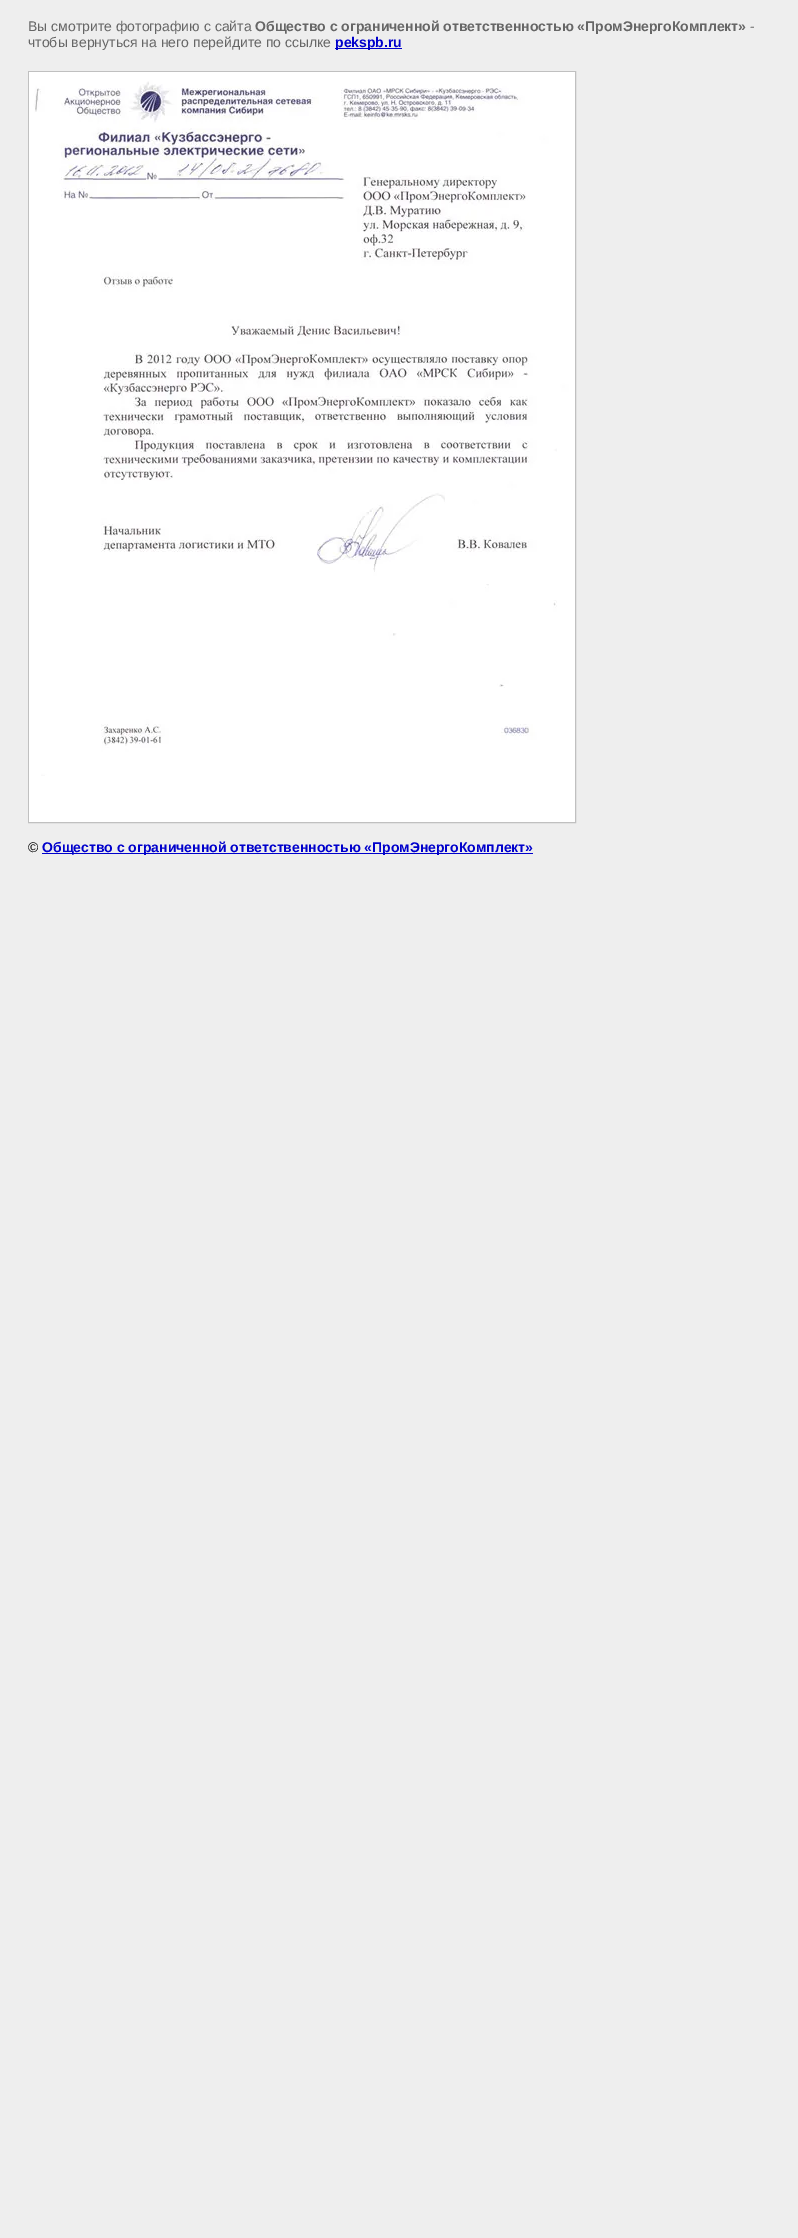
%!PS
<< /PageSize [798 2238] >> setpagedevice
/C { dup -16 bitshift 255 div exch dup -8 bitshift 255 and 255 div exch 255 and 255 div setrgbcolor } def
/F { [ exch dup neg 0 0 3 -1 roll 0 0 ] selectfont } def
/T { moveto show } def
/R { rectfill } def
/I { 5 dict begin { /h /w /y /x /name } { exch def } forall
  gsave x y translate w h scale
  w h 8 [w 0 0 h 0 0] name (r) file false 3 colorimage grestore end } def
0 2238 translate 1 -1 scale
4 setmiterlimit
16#EEEEEE C
0 0 798 2238 R
/LiberationSans-Regular 14 F
16#666666 C
(Вы смотрите фотографию с сайта) 28 31 T
/LiberationSans-Bold 14 F
(Общество с ограниченной ответственностью «ПромЭнергоКомплект») 255 31 T
/LiberationSans-Regular 14 F
(-) 750 31 T
(чтобы вернуться на него перейдите по ссылке) 28 47 T
16#0000CC C
335 48 67 1 R
/LiberationSans-Bold 14 F
(pekspb.ru) 335 47 T
16#C0C0C0 C
28.5 71.5 547 751 rectstroke
(1.rgb) 29 72 546 750 I
/LiberationSans-Regular 14 F
16#000000 C
(©) 28 852 T
16#0000CC C
42 853 491 1 R
/LiberationSans-Bold 14 F
(Общество с ограниченной ответственностью «ПромЭнергоКомплект») 42 852 T
showpage
